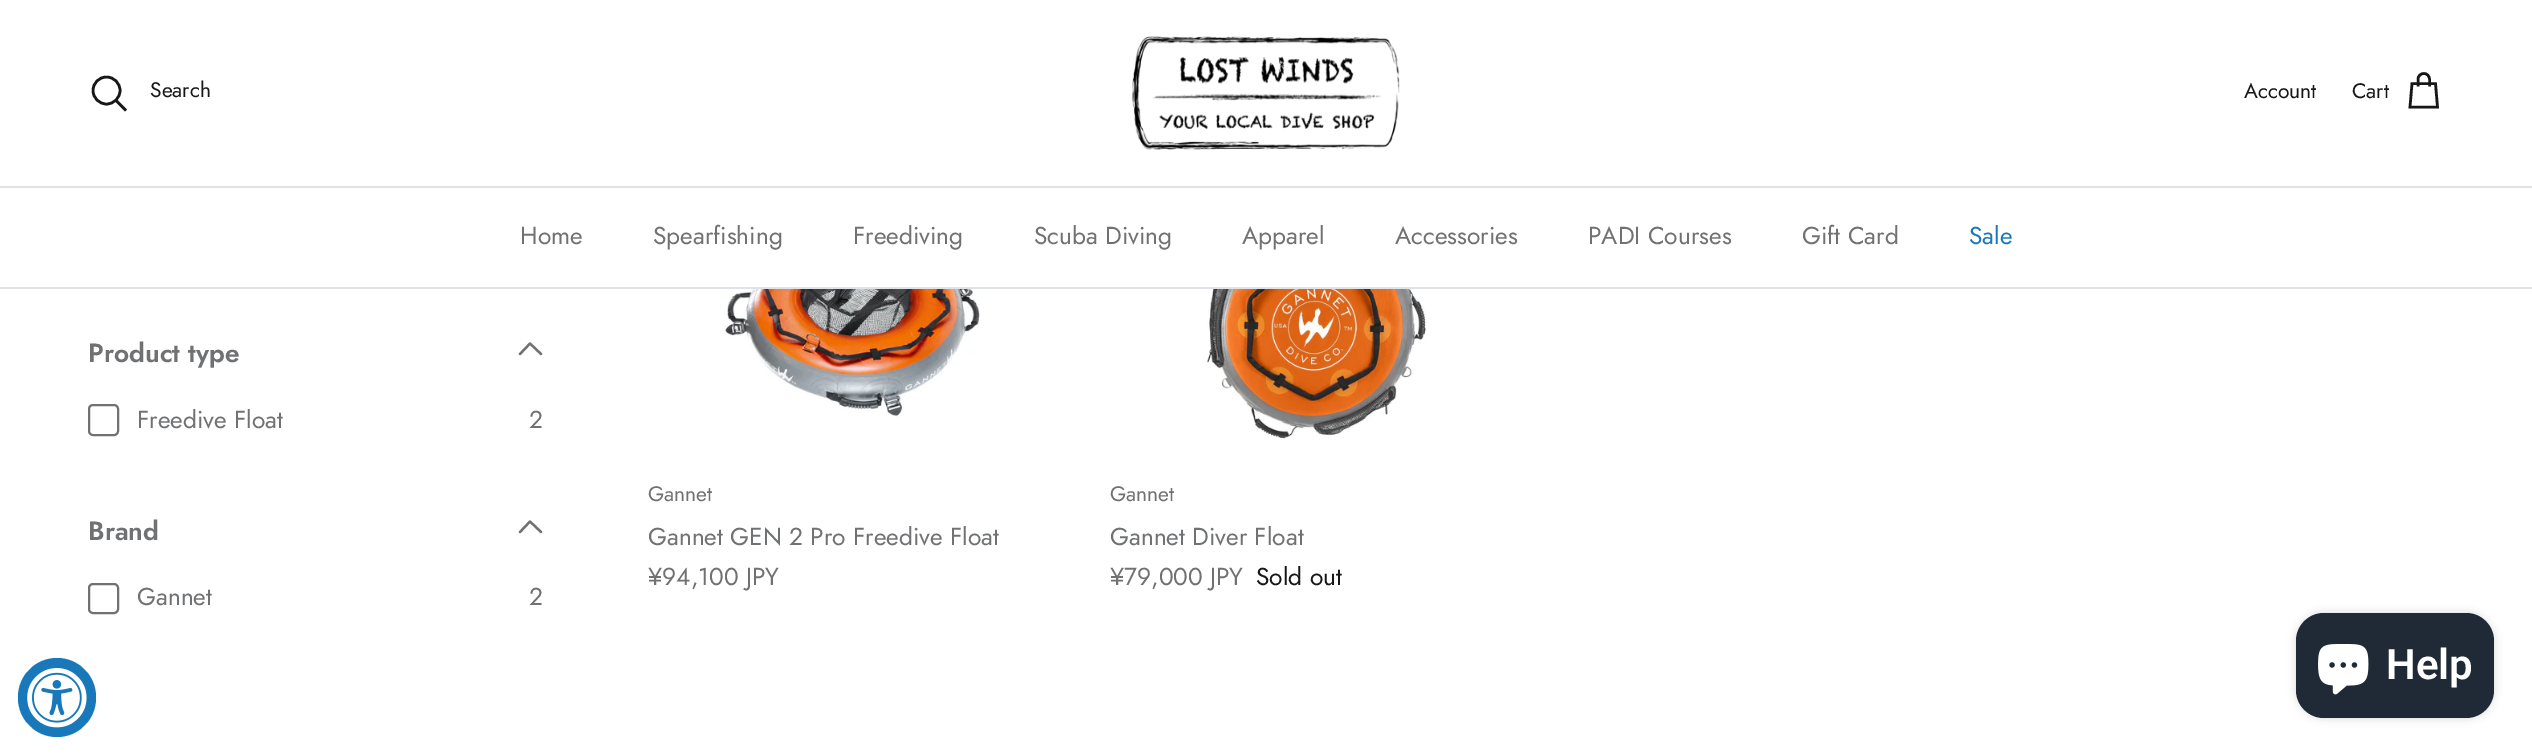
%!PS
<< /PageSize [2532 754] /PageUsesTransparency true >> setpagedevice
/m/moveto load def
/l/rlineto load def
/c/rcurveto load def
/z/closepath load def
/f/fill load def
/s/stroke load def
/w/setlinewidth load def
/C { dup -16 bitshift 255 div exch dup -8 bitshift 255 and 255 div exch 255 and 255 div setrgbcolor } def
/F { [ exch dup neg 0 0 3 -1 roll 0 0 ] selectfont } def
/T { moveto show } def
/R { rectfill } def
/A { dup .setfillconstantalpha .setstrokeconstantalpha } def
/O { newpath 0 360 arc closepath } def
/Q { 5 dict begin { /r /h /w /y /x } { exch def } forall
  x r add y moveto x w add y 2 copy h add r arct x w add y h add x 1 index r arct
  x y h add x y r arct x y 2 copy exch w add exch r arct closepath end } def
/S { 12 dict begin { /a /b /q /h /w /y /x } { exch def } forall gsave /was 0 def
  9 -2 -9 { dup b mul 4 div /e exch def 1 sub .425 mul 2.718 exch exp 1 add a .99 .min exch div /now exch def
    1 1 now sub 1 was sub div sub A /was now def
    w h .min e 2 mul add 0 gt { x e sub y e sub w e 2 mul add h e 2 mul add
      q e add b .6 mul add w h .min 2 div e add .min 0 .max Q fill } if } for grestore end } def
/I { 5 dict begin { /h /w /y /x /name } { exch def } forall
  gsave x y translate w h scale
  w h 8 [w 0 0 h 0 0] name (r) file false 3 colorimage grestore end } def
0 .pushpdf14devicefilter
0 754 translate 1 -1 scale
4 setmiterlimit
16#FFFFFF C
0 0 2532 754 R
16#DFE3E8 C
0 186 2532 2 R
16#171717 C
2.6 w
106.5 90.5 13.5 O s
/Jost-Regular 21 F
(Search) 150 97 T
2 setlinecap
117 101.5 m 8 8 l s
(1.rgb) 1132 36 268 114 I
(Account) 2244 98 T
(Cart) 2352 98 T
0 setlinecap
2429.5 86.5 m 0 -7 l 0 -3.5 -2.5 -6 -5.5 -6 c -3.5 0 -6 2.5 -6 6 c 0 7 l 2412 83.5 m 23.5 0 l 2 23.5 l -27.5 0 l z s
16#DFE3E8 C
0 287 2532 2 R
/Jost-Regular 24.5 F
16#707173 C
(Home) 520 244 T
(Spearfishing) 653 244 T
(Freediving) 853 244 T
(Scuba Diving) 1034 244 T
(Apparel) 1242 244 T
(Accessories) 1395 244 T
(PADI Courses) 1588 244 T
(Gift Card) 1802 244 T
16#1878B9 C
(Sale) 1969 244 T
/Jost-SemiBold 26.25 F
16#707173 C
(Product type) 88 362 T
2.3 w
1 setlinecap
1 setlinejoin
541 354 m -11 -10.5 l -10 10.5 l s
2 w
0 setlinecap
0 setlinejoin
89 405 29 30 4 Q s
/Jost-Regular 24.5 F
(Freedive Float) 137 428 T
(2) 529 428 T
/Jost-SemiBold 26.25 F
(Brand) 88 540 T
2.3 w
1 setlinecap
1 setlinejoin
541 532 m -11 -10.5 l -10 10.5 l s
2 w
0 setlinecap
0 setlinejoin
89 584 29 29 4 Q s
/Jost-Regular 24.5 F
(Gannet) 137 605 T
(2) 529 605 T
(2.rgb) 725 289 255 129 I
/Jost-Regular 21 F
(Gannet) 648 501 T
/Jost-Regular 24.5 F
(Gannet GEN 2 Pro Freedive Float) 648 545 T
(¥94,100 JPY) 648 585 T
(3.rgb) 1207 289 220 150 I
/Jost-Regular 21 F
(Gannet) 1110 501 T
/Jost-Regular 24.5 F
(Gannet Diver Float) 1110 545 T
(¥79,000 JPY) 1110 585 T
16#171717 C
(Sold out) 1256 585 T
16#1878B9 C
18 658 78 79 39 Q f
(4.rgb) 27 668 60 60 I
16#000000 C
2296 613 198 105 28 4.5 .15 S
16#202A36 C
2296 613 198 105 28 Q f
(5.rgb) 2318 644 51 51 I
/Roboto-SemiBold 42 F
16#FFFFFF C
(Help) 2386 679 T
.poppdf14devicefilter showpage
